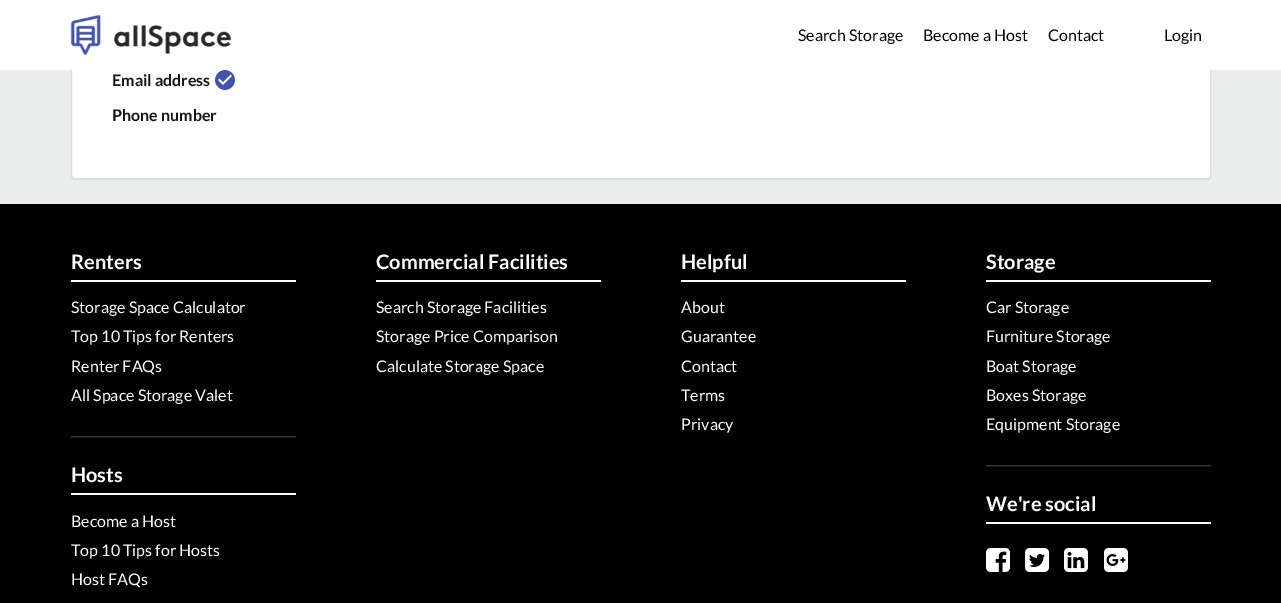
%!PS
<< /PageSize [1281 603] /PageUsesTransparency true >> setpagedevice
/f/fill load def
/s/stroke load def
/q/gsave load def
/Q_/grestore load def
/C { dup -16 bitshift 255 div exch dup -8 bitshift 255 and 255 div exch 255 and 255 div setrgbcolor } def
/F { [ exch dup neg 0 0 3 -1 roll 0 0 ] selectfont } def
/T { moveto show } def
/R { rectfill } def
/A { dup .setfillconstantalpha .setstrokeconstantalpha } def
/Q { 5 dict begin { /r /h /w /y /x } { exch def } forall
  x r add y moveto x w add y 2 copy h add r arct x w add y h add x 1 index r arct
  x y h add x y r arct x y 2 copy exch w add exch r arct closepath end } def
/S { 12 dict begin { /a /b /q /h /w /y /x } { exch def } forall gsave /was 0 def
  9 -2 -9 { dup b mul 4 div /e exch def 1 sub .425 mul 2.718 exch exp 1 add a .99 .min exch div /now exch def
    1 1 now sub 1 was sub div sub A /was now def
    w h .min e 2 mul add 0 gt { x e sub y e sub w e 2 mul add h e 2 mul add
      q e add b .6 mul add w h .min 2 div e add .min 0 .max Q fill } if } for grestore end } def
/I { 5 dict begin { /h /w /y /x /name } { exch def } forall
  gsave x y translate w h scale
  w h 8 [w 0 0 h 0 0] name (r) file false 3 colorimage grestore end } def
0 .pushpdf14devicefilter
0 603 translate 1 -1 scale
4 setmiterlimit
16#EBECEC C
0 0 1281 603 R
16#000000 C
71 -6 1140 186 4 .5 .05 S
16#FFFFFF C
71.5 -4.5 1139 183 3.5 Q q f Q_
16#D3E0E9 C
s
16#FFFFFF C
0 0 1281 70 R
(1.rgb) 70 15 161 40 I
/Lato-Regular 16 F
16#000000 C
(Search Storage) 798 41 T
(Become a Host) 923 41 T
(Contact) 1048 41 T
(Login) 1164 41 T
/Lato-Bold 16 F
16#161616 C
(Email address) 112 86 T
(2.rgb) 215 70 20 20 I
(Phone number) 112 121 T
16#000000 C
0 204 1281 399 R
16#FFFFFF C
71 280 225 2 R
/Lato-Bold 20 F
(Renters) 71 269 T
/Lato-Regular 16 F
(Storage Space Calculator) 71 313 T
(Top 10 Tips for Renters) 71 342 T
(Renter FAQs) 71 372 T
(All Space Storage Valet) 71 401 T
16#333333 C
71 436 225 1 R
16#191919 C
71 437 225 1 R
16#FFFFFF C
71 493 225 2 R
/Lato-Bold 20 F
(Hosts) 71 482 T
/Lato-Regular 16 F
(Become a Host) 71 527 T
(Top 10 Tips for Hosts) 71 556 T
(Host FAQs) 71 585 T
376 280 225 2 R
/Lato-Bold 20 F
(Commercial Facilities) 376 269 T
/Lato-Regular 16 F
(Search Storage Facilities) 376 313 T
(Storage Price Comparison) 376 342 T
(Calculate Storage Space) 376 372 T
681 280 225 2 R
/Lato-Bold 20 F
(Helpful) 681 269 T
/Lato-Regular 16 F
(About) 681 313 T
(Guarantee) 681 342 T
(Contact) 681 372 T
(Terms) 681 401 T
(Privacy) 681 430 T
986 280 225 2 R
/Lato-Bold 20 F
(Storage) 986 269 T
/Lato-Regular 16 F
(Car Storage) 986 313 T
(Furniture Storage) 986 342 T
(Boat Storage) 986 372 T
(Boxes Storage) 986 401 T
(Equipment Storage) 986 430 T
16#333333 C
986 465 225 1 R
16#191919 C
986 466 225 1 R
16#FFFFFF C
986 522 225 2 R
/Lato-Bold 20 F
(We're social) 986 511 T
(3.rgb) 986 548 24 24 I
(4.rgb) 1025 548 24 24 I
(5.rgb) 1064 548 24 24 I
(6.rgb) 1104 548 24 24 I
.poppdf14devicefilter showpage
